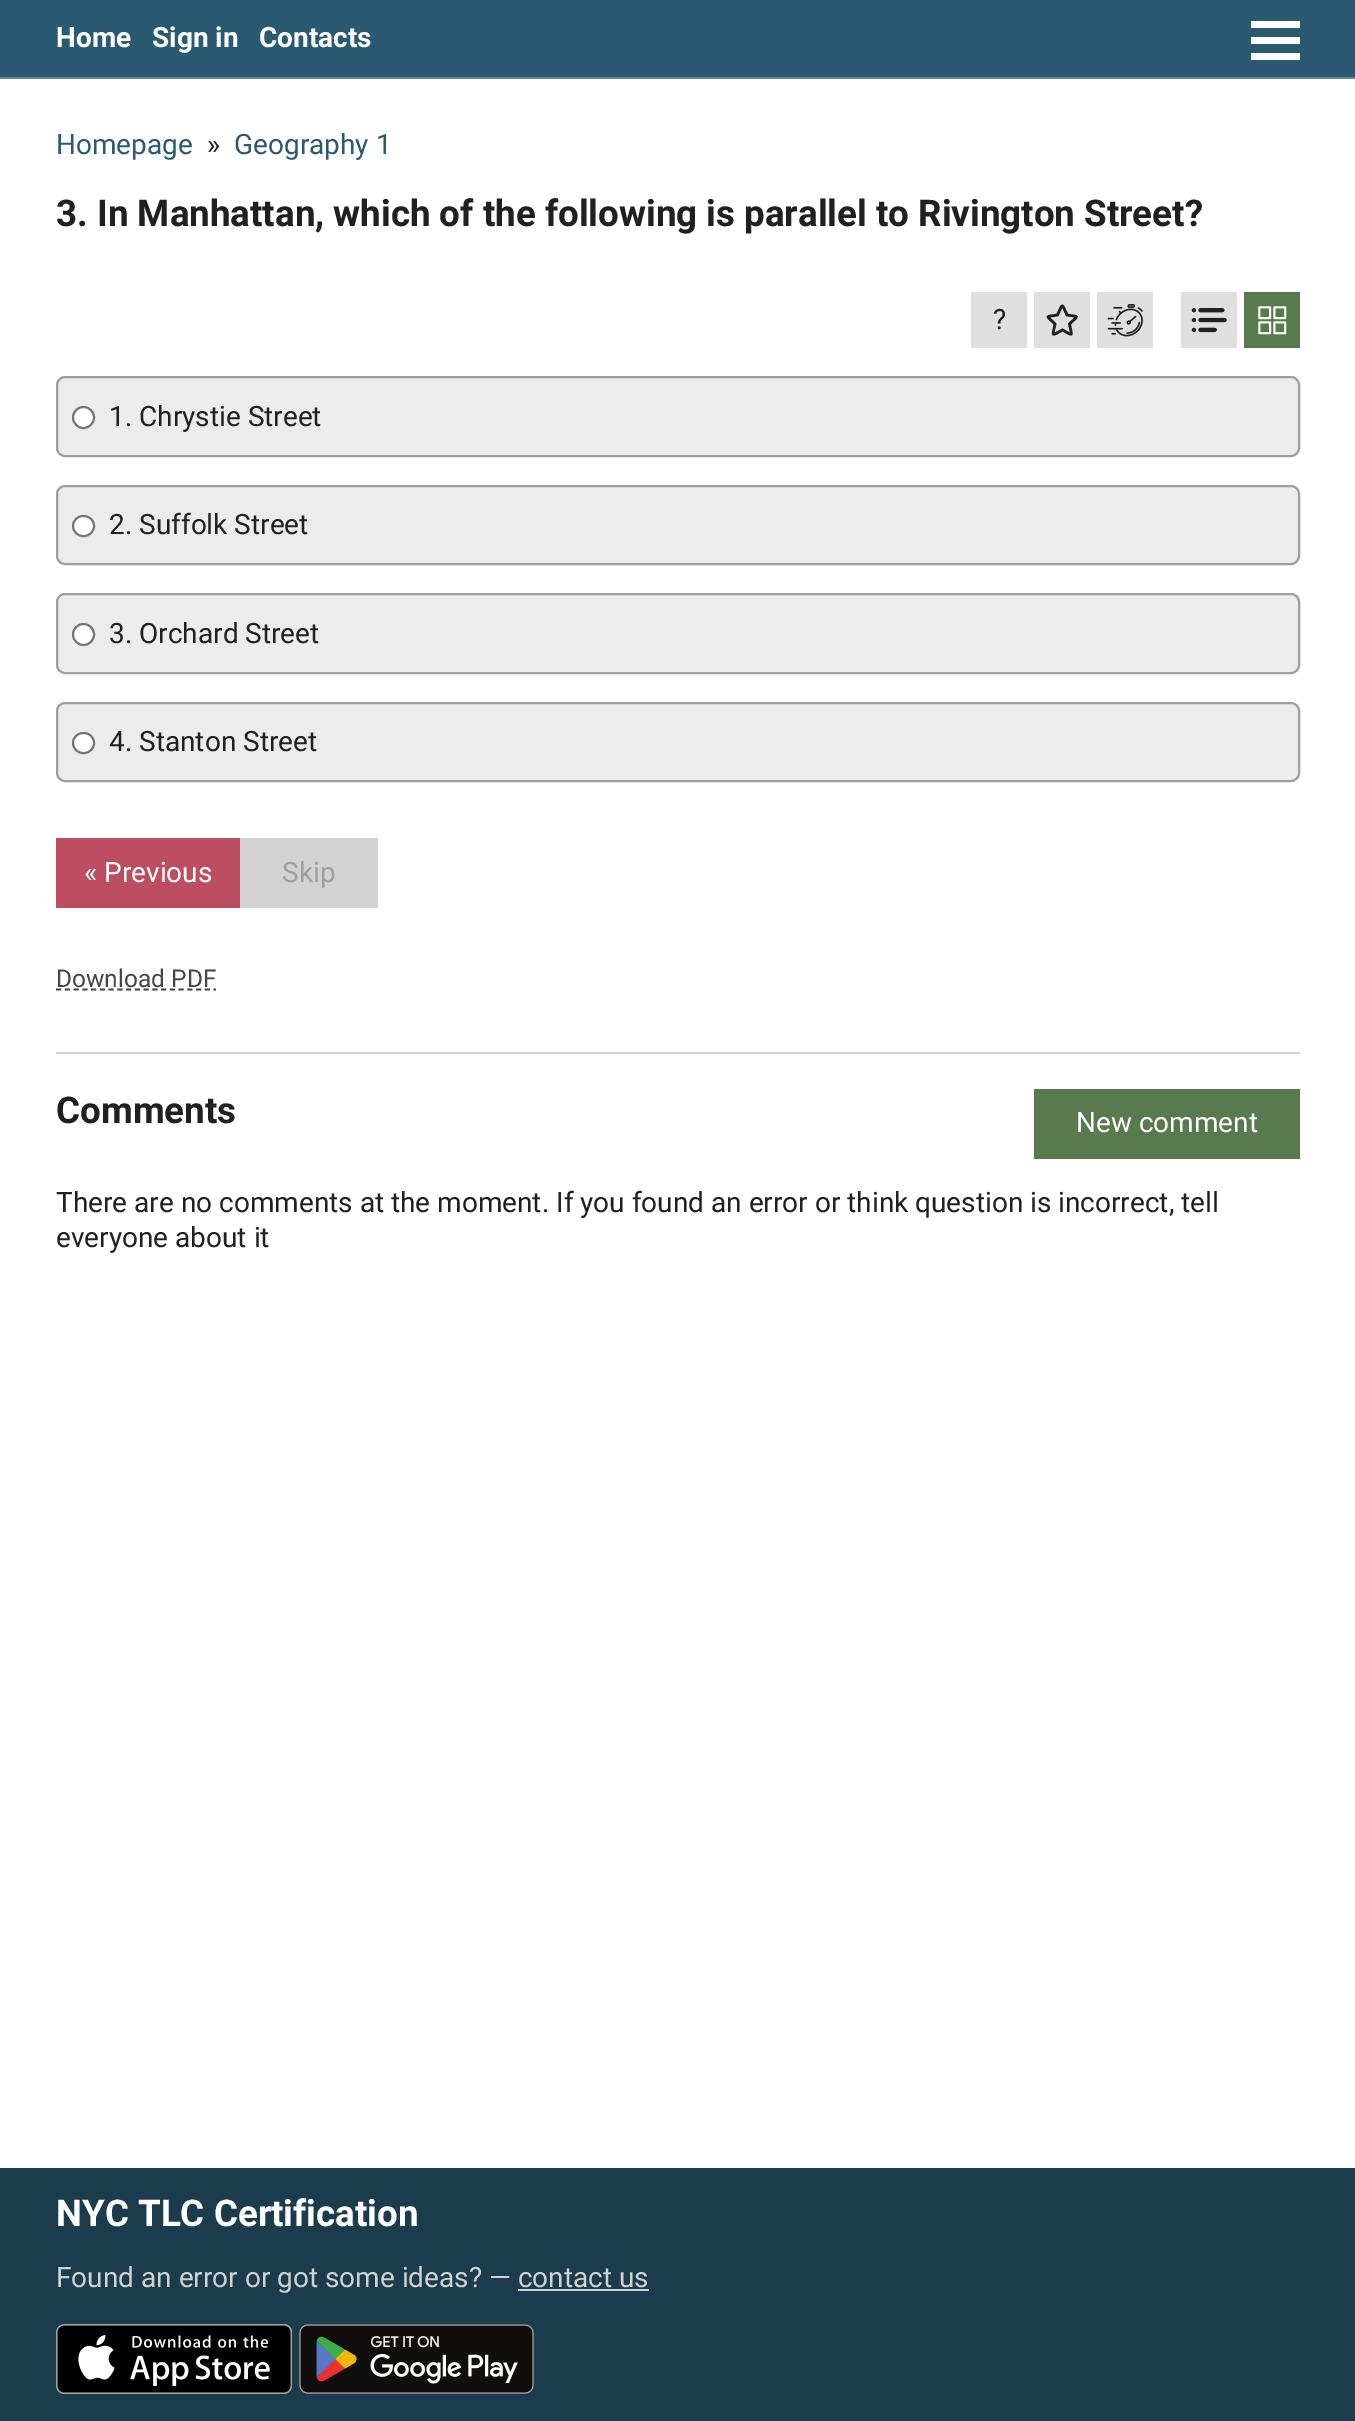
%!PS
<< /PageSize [1355 2421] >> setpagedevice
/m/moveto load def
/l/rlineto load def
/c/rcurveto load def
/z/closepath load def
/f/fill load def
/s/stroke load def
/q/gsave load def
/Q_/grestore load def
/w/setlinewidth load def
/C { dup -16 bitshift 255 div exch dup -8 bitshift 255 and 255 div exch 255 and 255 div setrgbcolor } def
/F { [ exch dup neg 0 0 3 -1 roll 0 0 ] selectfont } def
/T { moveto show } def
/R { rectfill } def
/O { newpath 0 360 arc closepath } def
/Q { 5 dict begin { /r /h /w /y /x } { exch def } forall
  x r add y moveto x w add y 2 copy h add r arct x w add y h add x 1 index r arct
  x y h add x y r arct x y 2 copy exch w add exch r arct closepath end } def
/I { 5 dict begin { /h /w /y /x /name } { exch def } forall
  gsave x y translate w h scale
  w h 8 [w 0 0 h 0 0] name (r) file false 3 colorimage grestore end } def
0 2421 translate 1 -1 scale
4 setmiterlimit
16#FFFFFF C
0 0 1355 2421 R
16#295A71 C
0 0 1355 77 R
/Roboto-Bold 28 F
16#FFFFFF C
(Home) 56 47 T
(Sign in) 152 47 T
(Contacts) 259 47 T
1251 21 49 7 R
1251 37 49 7 R
1251 53 49 7 R
16#648493 C
0 77 1355 2 R
/Roboto-Regular 28 F
16#295A71 C
(Homepage) 56 154 T
16#202020 C
(») 207 154 T
16#295A71 C
(Geography 1) 234 154 T
/Roboto-Bold 36.75 F
16#202020 C
(3. In Manhattan, which of the following is parallel to Rivington Street?) 56 226 T
16#DFDFDF C
971 292 56 56 R
/Roboto-Regular 28 F
16#202020 C
(?) 993 329 T
16#DFDFDF C
1034 292 56 56 R
16#202020 C
2.6 w
1055 324 m -2.5 13 -4 12 7.5 6 c 11 6 9.5 7 7 -6 c 9 -9 10 -7 -2.5 -9 c -5.5 -12 -4 -12 -9.5 0 c -12.5 2 -11.5 0 -2.5 9 c z s
16#DFDFDF C
1097 292 56 56 R
(1.rgb) 1107 304 36 33 I
1181 292 56 56 R
(2.rgb) 1191 308 36 25 I
16#597A4F C
1244 292 56 56 R
(3.rgb) 1258 306 29 29 I
16#ECECEC C
57 377 1242 79 8 Q q f Q_
16#9F9F9F C
2 w
s
16#FFFFFF C
83.5 417.5 10.5 O q f Q_
16#767676 C
s
16#202020 C
(1. Chrystie Street) 109 426 T
16#ECECEC C
57 486 1242 78 8 Q q f Q_
16#9F9F9F C
s
16#FFFFFF C
73 516 21 20 10 Q q f Q_
16#767676 C
s
16#202020 C
(2. Suffolk Street) 109 534 T
16#ECECEC C
57 594 1242 79 8 Q q f Q_
16#9F9F9F C
s
16#FFFFFF C
83.5 634.5 10.5 O q f Q_
16#767676 C
s
16#202020 C
(3. Orchard Street) 109 643 T
16#ECECEC C
57 703 1242 78 8 Q q f Q_
16#9F9F9F C
s
16#FFFFFF C
73 733 21 20 10 Q q f Q_
16#767676 C
s
16#202020 C
(4. Stanton Street) 109 751 T
16#BD4E62 C
56 838 184 70 R
16#FFFFFF C
(« Previous) 84 882 T
16#D2D2D2 C
240 838 138 70 R
16#9F9F9F C
(Skip) 282 882 T
/Roboto-Regular 24.5 F
16#464646 C
(Download PDF) 56 987 T
1.8 w
[5.25 3.5] 0 setdash
56 989.5 m 160 0 l s
16#D2D2D2 C
56 1052 1244 2 R
/Roboto-Bold 36.75 F
16#202020 C
(Comments) 56 1123 T
16#597A4F C
1034 1089 266 70 R
/Roboto-Regular 28 F
16#FFFFFF C
(New comment) 1076 1132 T
16#202020 C
(There are no comments at the moment. If you found an error or think question is incorrect, tell) 56 1212 T
(everyone about it) 56 1247 T
16#1B3C4C C
0 2168 1355 253 R
/Roboto-Bold 36.75 F
16#FFFFFF C
(NYC TLC Certification) 56 2226 T
/Roboto-Regular 28 F
16#D2D2D2 C
(Found an error or got some ideas? — contact us) 56 2287 T
518 2289 131 2 R
(4.rgb) 56 2324 236 70 I
(5.rgb) 299 2324 235 70 I
showpage
